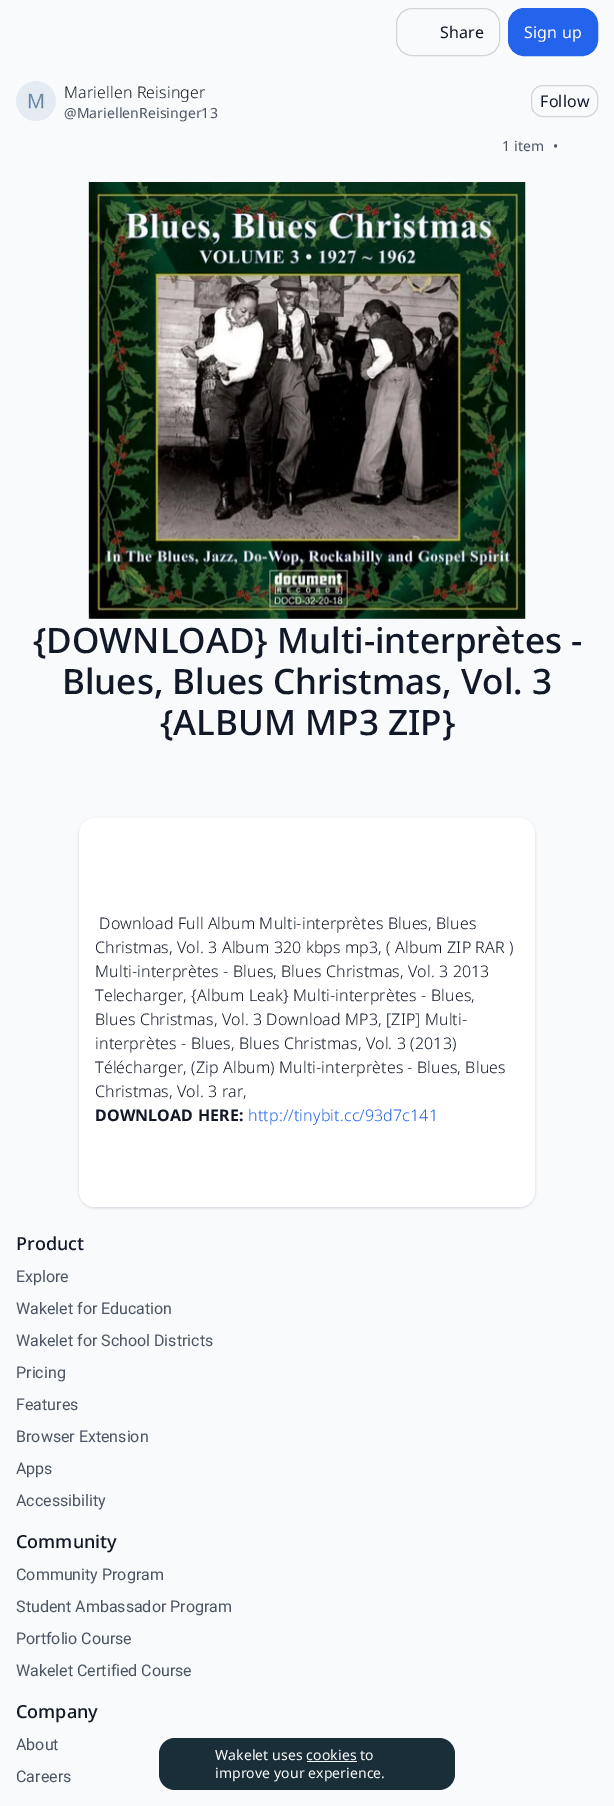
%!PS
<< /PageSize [614 1806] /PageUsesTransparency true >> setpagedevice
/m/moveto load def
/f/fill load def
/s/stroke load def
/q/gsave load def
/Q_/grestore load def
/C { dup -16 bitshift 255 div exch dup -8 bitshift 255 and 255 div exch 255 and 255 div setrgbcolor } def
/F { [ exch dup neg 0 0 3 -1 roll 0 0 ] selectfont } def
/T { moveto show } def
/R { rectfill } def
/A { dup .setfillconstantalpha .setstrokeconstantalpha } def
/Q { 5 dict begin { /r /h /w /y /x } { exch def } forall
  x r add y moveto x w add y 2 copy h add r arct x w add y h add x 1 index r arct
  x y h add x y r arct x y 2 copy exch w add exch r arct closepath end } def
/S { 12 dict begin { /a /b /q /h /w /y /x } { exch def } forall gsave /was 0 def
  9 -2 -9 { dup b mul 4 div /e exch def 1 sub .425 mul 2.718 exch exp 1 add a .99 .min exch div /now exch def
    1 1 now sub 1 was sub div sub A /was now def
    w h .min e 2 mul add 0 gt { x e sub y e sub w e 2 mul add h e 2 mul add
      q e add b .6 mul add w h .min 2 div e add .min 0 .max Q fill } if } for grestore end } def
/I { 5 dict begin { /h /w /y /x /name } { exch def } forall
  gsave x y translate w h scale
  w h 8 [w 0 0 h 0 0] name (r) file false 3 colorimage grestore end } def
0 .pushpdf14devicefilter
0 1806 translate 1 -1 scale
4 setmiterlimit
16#F9FAFB C
0 0 614 1806 R
16#D1D5DB C
396.5 8.5 103 47 15.5 Q s
/NotoSans-Regular 16 F
16#111827 C
440 38 m .25 0 (Share) ashow
16#2463EB C
508.5 8.5 89 47 15.5 Q q f Q_
s
16#FFFFFF C
524 38 m .25 0 (Sign up) ashow
(1.rgb) 16 81 40 40 I
/NotoSans-Light 16 F
16#111827 C
64 98 m .13 0 (Mariellen Reisinger) ashow
/NotoSans-Regular 14 F
16#4B5563 C
64 118 m .1 0 (@MariellenReisinger13) ashow
16#D1D5DB C
531.5 85.5 66 31 11.5 Q s
/NotoSans-Regular 16 F
16#111827 C
540 107 m .25 0 (Follow) ashow
/NotoSans-Regular 14 F
16#4B5563 C
502 151 m .1 0 (1 item) ashow
553 151 m .1 0 (•) ashow
(2.rgb) 88 182 438 437 I
/NotoSans-Medium 35 F
16#111827 C
({DOWNLOAD} Multi-interprètes -) 33 653 T
(Blues, Blues Christmas, Vol. 3) 62 694 T
({ALBUM MP3 ZIP}) 160 735 T
16#00183D C
79 819 456 389 16 1 .06 S
79 819 456 389 16 1.5 .1 S
16#FFFFFF C
79 818 456 389 16 Q f
/NotoSans-Light 16 F
16#111827 C
99 929 m .13 0 (Download Full Album Multi-interprètes Blues, Blues) ashow
95 953 m .13 0 (Christmas, Vol. 3 Album 320 kbps mp3, \( Album ZIP RAR \)) ashow
95 977 m .13 0 (Multi-interprètes - Blues, Blues Christmas, Vol. 3 2013) ashow
95 1001 m .13 0 (Telecharger, {Album Leak} Multi-interprètes - Blues,) ashow
95 1025 m .13 0 (Blues Christmas, Vol. 3 Download MP3, [ZIP] Multi-) ashow
95 1049 m .13 0 (interprètes - Blues, Blues Christmas, Vol. 3 \(2013\)) ashow
95 1073 m .13 0 (Télécharger, \(Zip Album\) Multi-interprètes - Blues, Blues) ashow
95 1097 m .13 0 (Christmas, Vol. 3 rar,) ashow
/NotoSans-Bold 16 F
95 1121 m .13 0 (DOWNLOAD HERE:) ashow
/NotoSans-Light 16 F
16#2463EB C
248 1121 m .13 0 (http://tinybit.cc/93d7c141) ashow
/NotoSans-Medium 18 F
16#111827 C
(Product) 16 1250 T
/Roboto-Regular 16 F
16#4B5563 C
(Explore) 16 1282 T
(Wakelet for Education) 16 1314 T
(Wakelet for School Districts) 16 1346 T
(Pricing) 16 1378 T
(Features) 16 1410 T
(Browser Extension) 16 1442 T
(Apps) 16 1474 T
(Accessibility) 16 1506 T
/NotoSans-Medium 18 F
16#111827 C
(Community) 16 1548 T
/Roboto-Regular 16 F
16#4B5563 C
(Community Program) 16 1580 T
(Student Ambassador Program) 16 1612 T
(Portfolio Course) 16 1644 T
(Wakelet Certified Course) 16 1676 T
/NotoSans-Medium 18 F
16#111827 C
(Company) 16 1718 T
/Roboto-Regular 16 F
16#4B5563 C
(About) 16 1750 T
(Careers) 16 1782 T
16#192E38 C
159 1738 296 52 16 Q f
/NotoSans-Regular 14 F
16#FFFFFF C
215 1760 m .1 0 (Wakelet uses cookies to) ashow
307 1761 50 1 R
215 1778 m .1 0 (improve your experience.) ashow
.poppdf14devicefilter showpage
